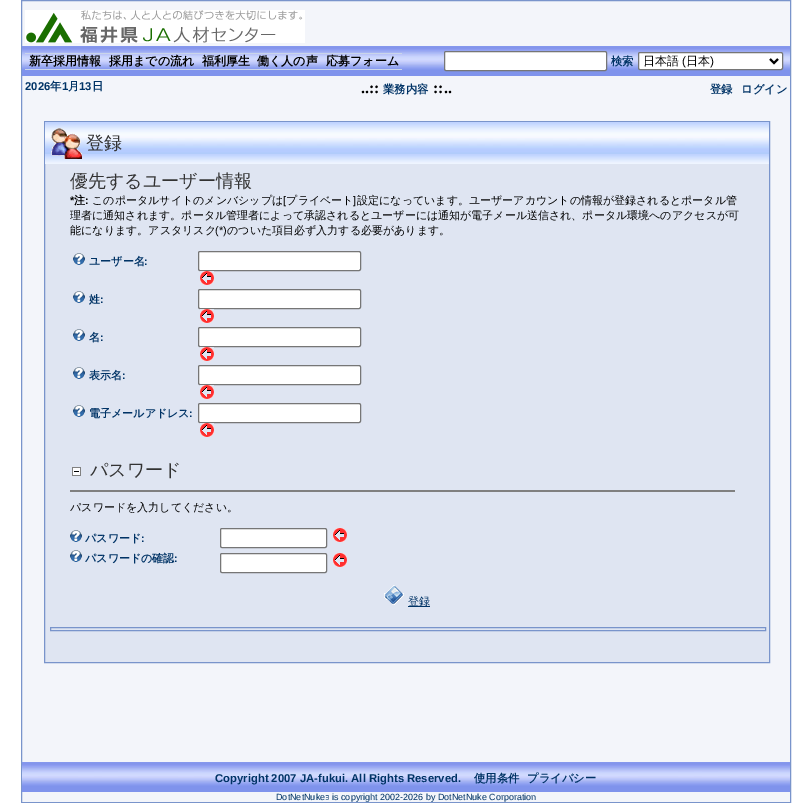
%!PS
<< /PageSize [812 803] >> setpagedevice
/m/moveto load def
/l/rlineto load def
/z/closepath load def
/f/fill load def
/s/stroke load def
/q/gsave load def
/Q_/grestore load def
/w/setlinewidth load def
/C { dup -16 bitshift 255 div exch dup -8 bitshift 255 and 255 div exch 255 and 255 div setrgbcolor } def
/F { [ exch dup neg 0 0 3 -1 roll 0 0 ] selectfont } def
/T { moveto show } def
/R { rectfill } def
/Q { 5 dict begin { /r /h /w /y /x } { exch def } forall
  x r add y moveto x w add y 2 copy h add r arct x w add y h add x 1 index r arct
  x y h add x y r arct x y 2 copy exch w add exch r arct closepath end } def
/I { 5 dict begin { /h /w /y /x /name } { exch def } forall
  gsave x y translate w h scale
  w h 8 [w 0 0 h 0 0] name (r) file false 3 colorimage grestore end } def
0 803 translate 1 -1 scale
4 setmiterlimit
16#FFFFFF C
0 0 812 803 R
16#F3F5FA C
21.5 .5 m 769 0 l 0 802 l -769 0 l z q f Q_
16#7994CB C
s
(1.rgb) 25 10 280 33 I
(2.rgb) 22 46 768 30 I
16#CAD5EA C
25 53 377 1 R
25 69 377 1 R
/WenQuanYiZenHei-Bold 12 F
16#000000 C
(新卒採用情報) 29 65 T
(採用までの流れ) 109 65 T
(福利厚生) 202 65 T
(働く人の声) 257 65 T
(応募フォーム) 326 65 T
16#FFFFFF C
444.5 51.5 162 19 1.5 Q q f Q_
16#767676 C
s
/WenQuanYiZenHei-Bold 11.3 F
16#003366 C
(検索) 611 65 T
16#FFFFFF C
638.5 52.5 144 17 1.5 Q q f Q_
16#767676 C
s
16#000000 C
2 w
770 59 m 4 4 l 4 -4 l s
/WenQuanYiZenHei-Medium 12 F
(日本語) 643 65 T
/LiberationSans-Regular 12 F
(\() 682 65 T
/WenQuanYiZenHei-Medium 12 F
(日本) 686 65 T
/LiberationSans-Regular 12 F
(\)) 710 65 T
/LiberationSans-Bold 11.3 F
16#003366 C
(2026) 25 90 T
/WenQuanYiZenHei-Bold 11.3 F
(年) 50 90 T
/LiberationSans-Bold 11.3 F
(1) 62 90 T
/WenQuanYiZenHei-Bold 11.3 F
(月) 68 90 T
/LiberationSans-Bold 11.3 F
(13) 79 90 T
/WenQuanYiZenHei-Bold 11.3 F
(日) 92 90 T
/LiberationSerif-Bold 16 F
16#000000 C
(..::) 361 93 T
/WenQuanYiZenHei-Bold 11.3 F
16#003366 C
(業務内容) 383 93 T
/LiberationSerif-Bold 16 F
16#000000 C
(::..) 433 93 T
/WenQuanYiZenHei-Bold 11.3 F
16#003366 C
(登録) 710 93 T
(ログイン) 741 93 T
16#DFE5F2 C
45 164 724 498 R
16#7994CB C
1 w
44.5 121.5 725 541 rectstroke
(3.rgb) 45 122 724 42 I
(4.rgb) 51 128 31 31 I
/WenQuanYiZenHei-Medium 18 F
16#333333 C
(登録) 86 149 T
(優先するユーザー情報) 70 187 T
/LiberationSans-Bold 11 F
16#000000 C
(*) 70 204 T
/WenQuanYiZenHei-Bold 11 F
(注) 74 204 T
/WenQuanYiZenHei-Medium 11 F
(このポータルサイトのメンバシップは プライベート 設定になっています。ユーザーアカウントの情報が登録されるとポータル管) 92 204 T
/LiberationSans-Bold 11 F
(:) 85 204 T
/LiberationSans-Regular 11 F
([) 283 204 T
(]) 353 204 T
/WenQuanYiZenHei-Medium 11 F
(理者に通知されます。ポータル管理者によって承認されるとユーザーには通知が電子メール送信され、ポータル環境へのアクセスが可) 70 219 T
(能になります。アスタリスク) 70 234 T
/LiberationSans-Regular 11 F
(\(*\)) 215 234 T
/WenQuanYiZenHei-Medium 11 F
(のついた項目必ず入力する必要があります。) 227 234 T
(5.rgb) 73 253 12 12 I
/WenQuanYiZenHei-Bold 11 F
16#003366 C
(ユーザー名) 89 265 T
/LiberationSans-Bold 11 F
(:) 144 265 T
16#FFFFFF C
198.5 251.5 162 19 1.5 Q q f Q_
16#767676 C
s
(6.rgb) 200 271 14 14 I
(5.rgb) 73 291 12 12 I
/WenQuanYiZenHei-Bold 11 F
16#003366 C
(姓) 89 303 T
/LiberationSans-Bold 11 F
(:) 100 303 T
16#FFFFFF C
198.5 289.5 162 19 1.5 Q q f Q_
16#767676 C
s
(6.rgb) 200 309 14 14 I
(5.rgb) 73 329 12 12 I
/WenQuanYiZenHei-Bold 11 F
16#003366 C
(名) 89 341 T
/LiberationSans-Bold 11 F
(:) 100 341 T
16#FFFFFF C
198.5 327.5 162 19 1.5 Q q f Q_
16#767676 C
s
(6.rgb) 200 347 14 14 I
(5.rgb) 73 367 12 12 I
/WenQuanYiZenHei-Bold 11 F
16#003366 C
(表示名) 89 379 T
/LiberationSans-Bold 11 F
(:) 122 379 T
16#FFFFFF C
198.5 365.5 162 19 1.5 Q q f Q_
16#767676 C
s
(6.rgb) 200 385 14 14 I
(5.rgb) 73 405 12 12 I
/WenQuanYiZenHei-Bold 11 F
16#003366 C
(電子メールアドレス) 89 417 T
/LiberationSans-Bold 11 F
(:) 189 417 T
16#FFFFFF C
198.5 403.5 162 19 1.5 Q q f Q_
16#767676 C
s
(6.rgb) 200 423 14 14 I
(7.rgb) 72 467 9 9 I
/WenQuanYiZenHei-Medium 18 F
16#333333 C
(パスワード) 90 476 T
16#808080 C
71 491 663 1 R
70 490 665 1 R
734 490 1 2 R
70 490 1 2 R
/WenQuanYiZenHei-Medium 11 F
16#000000 C
(パスワードを入力してください。) 70 511 T
(5.rgb) 70 530 12 12 I
/WenQuanYiZenHei-Bold 11 F
16#003366 C
(パスワード) 85 542 T
/LiberationSans-Bold 11 F
(:) 141 542 T
16#FFFFFF C
220.5 528.5 106 19 1.5 Q q f Q_
16#767676 C
s
(6.rgb) 333 528 14 14 I
(5.rgb) 70 550 12 12 I
/WenQuanYiZenHei-Bold 11 F
16#003366 C
(パスワードの確認) 85 562 T
/LiberationSans-Bold 11 F
(:) 174 562 T
16#FFFFFF C
220.5 553.5 106 19 1.5 Q q f Q_
16#767676 C
s
(6.rgb) 333 553 14 14 I
(8.rgb) 384 585 20 20 I
16#003366 C
408 606 22 1 R
/WenQuanYiZenHei-Medium 11 F
(登録) 408 605 T
16#7994CB C
50.5 627.5 715 3 rectstroke
(2.rgb) 22 762 768 30 I
/LiberationSans-Bold 11.3 F
16#003366 C
(Copyright 2007 JA-fukui. All Rights Reserved.) 215 782 T
/WenQuanYiZenHei-Bold 11.3 F
(使用条件) 474 782 T
(プライバシー) 527 782 T
/LiberationSans-Regular 9 F
(DotNetNuke) 276 800 T
/IPAGothic-Regular 9 F
(ｮ) 325 800 T
/LiberationSans-Regular 9 F
(is copyright 2002-2026 by DotNetNuke Corporation) 332 800 T
showpage
